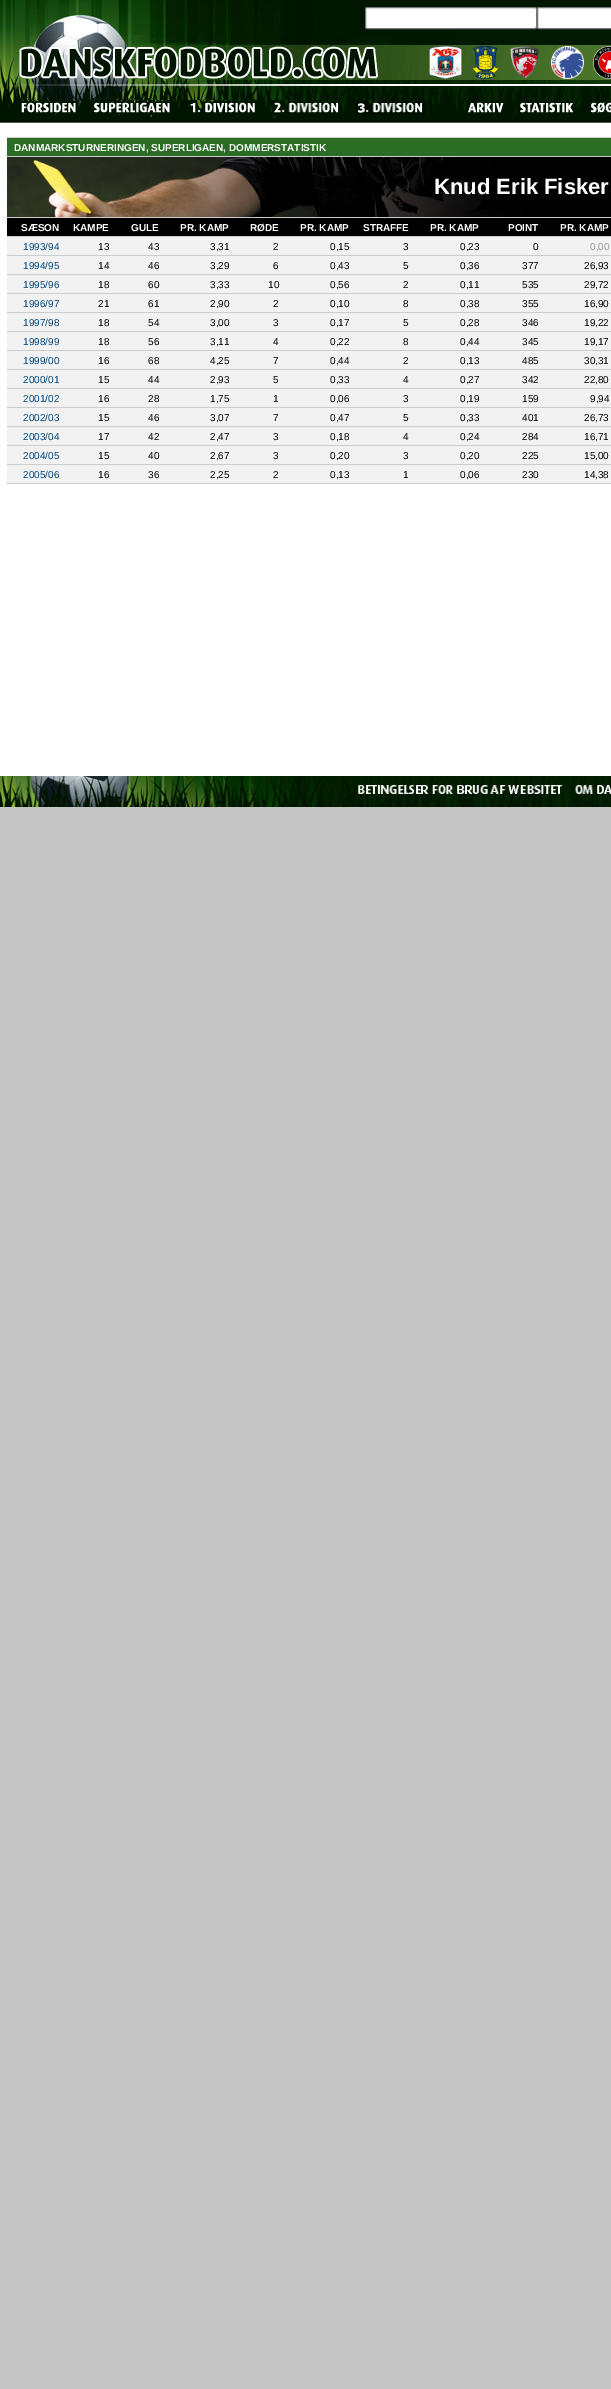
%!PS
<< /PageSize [611 2389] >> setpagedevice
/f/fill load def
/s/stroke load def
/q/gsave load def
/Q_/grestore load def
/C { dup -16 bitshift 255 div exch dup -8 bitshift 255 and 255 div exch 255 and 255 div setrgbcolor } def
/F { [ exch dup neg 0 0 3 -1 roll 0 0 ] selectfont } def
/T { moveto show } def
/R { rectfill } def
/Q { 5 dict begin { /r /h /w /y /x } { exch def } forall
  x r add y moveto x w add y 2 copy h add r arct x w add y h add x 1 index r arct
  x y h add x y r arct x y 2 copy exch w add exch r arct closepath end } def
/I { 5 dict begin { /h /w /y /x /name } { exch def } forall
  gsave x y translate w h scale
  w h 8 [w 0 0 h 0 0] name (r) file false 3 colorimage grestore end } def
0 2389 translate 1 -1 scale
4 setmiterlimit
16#FFFFFF C
0 0 611 2389 R
(1.rgb) 0 807 611 1582 I
(2.rgb) 0 0 611 35 I
365.5 7.5 171 21 1.5 Q q f Q_
16#767676 C
s
16#FFFFFF C
537.5 7.5 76 21 1.5 Q q f Q_
16#767676 C
s
(3.rgb) 391 35 220 50 I
(4.rgb) 0 35 391 50 I
(5.rgb) 429 46 33 33 I
(6.rgb) 472 46 27 33 I
(7.rgb) 510 46 29 33 I
(8.rgb) 551 46 33 33 I
(9.rgb) 593 46 18 33 I
(10.rgb) 0 85 611 41 I
(11.rgb) 21 100 57 15 I
(12.rgb) 93 100 79 15 I
(13.rgb) 188 100 69 15 I
(14.rgb) 272 100 68 15 I
(15.rgb) 356 100 69 15 I
(16.rgb) 466 100 40 13 I
(17.rgb) 520 100 55 15 I
(18.rgb) 590 100 21 13 I
16#CCCCCC C
7 137 604 1 R
16#2B6D24 C
7 138 604 18 R
/LiberationSans-Bold 10 F
16#FFFFFF C
(DANMARKSTURNERINGEN, SUPERLIGAEN, DOMMERSTATISTIK) 14 151 T
16#CCCCCC C
7 156 604 1 R
(19.rgb) 7 157 604 60 I
/LiberationSans-Bold 22 F
16#FFFFFF C
(Knud Erik Fisker) 434 194 T
16#CCCCCC C
7 217 604 1 R
16#F2F2F2 C
7 237 604 246 R
16#000000 C
7 218 604 18 R
/LiberationSans-Bold 10 F
16#FFFFFF C
(SÆSON) 21 231 T
(KAMPE) 73 231 T
(GULE) 131 231 T
(PR. KAMP) 180 231 T
(RØDE) 250 231 T
(PR. KAMP) 300 231 T
(STRAFFE) 363 231 T
(PR. KAMP) 430 231 T
(POINT) 508 231 T
(PR. KAMP) 560 231 T
16#CCCCCC C
7 236 604 1 R
/LiberationSans-Regular 10 F
16#00467E C
(1993/94) 23 250 T
16#000000 C
(13) 98 250 T
(43) 148 250 T
(3,31) 210 250 T
(2) 273 250 T
(0,15) 330 250 T
(3) 403 250 T
(0,23) 460 250 T
(0) 533 250 T
16#999999 C
(0,00) 590 250 T
16#CCCCCC C
7 255 604 1 R
16#00467E C
(1994/95) 23 269 T
16#000000 C
(14) 98 269 T
(46) 148 269 T
(3,29) 210 269 T
(6) 273 269 T
(0,43) 330 269 T
(5) 403 269 T
(0,36) 460 269 T
(377) 522 269 T
(26,93) 584 269 T
16#CCCCCC C
7 274 604 1 R
16#00467E C
(1995/96) 23 288 T
16#000000 C
(18) 98 288 T
(60) 148 288 T
(3,33) 210 288 T
(10) 268 288 T
(0,56) 330 288 T
(2) 403 288 T
(0,11) 460 288 T
(535) 522 288 T
(29,72) 584 288 T
16#CCCCCC C
7 293 604 1 R
16#00467E C
(1996/97) 23 307 T
16#000000 C
(21) 98 307 T
(61) 148 307 T
(2,90) 210 307 T
(2) 273 307 T
(0,10) 330 307 T
(8) 403 307 T
(0,38) 460 307 T
(355) 522 307 T
(16,90) 584 307 T
16#CCCCCC C
7 312 604 1 R
16#00467E C
(1997/98) 23 326 T
16#000000 C
(18) 98 326 T
(54) 148 326 T
(3,00) 210 326 T
(3) 273 326 T
(0,17) 330 326 T
(5) 403 326 T
(0,28) 460 326 T
(346) 522 326 T
(19,22) 584 326 T
16#CCCCCC C
7 331 604 1 R
16#00467E C
(1998/99) 23 345 T
16#000000 C
(18) 98 345 T
(56) 148 345 T
(3,11) 210 345 T
(4) 273 345 T
(0,22) 330 345 T
(8) 403 345 T
(0,44) 460 345 T
(345) 522 345 T
(19,17) 584 345 T
16#CCCCCC C
7 350 604 1 R
16#00467E C
(1999/00) 23 364 T
16#000000 C
(16) 98 364 T
(68) 148 364 T
(4,25) 210 364 T
(7) 273 364 T
(0,44) 330 364 T
(2) 403 364 T
(0,13) 460 364 T
(485) 522 364 T
(30,31) 584 364 T
16#CCCCCC C
7 369 604 1 R
16#00467E C
(2000/01) 23 383 T
16#000000 C
(15) 98 383 T
(44) 148 383 T
(2,93) 210 383 T
(5) 273 383 T
(0,33) 330 383 T
(4) 403 383 T
(0,27) 460 383 T
(342) 522 383 T
(22,80) 584 383 T
16#CCCCCC C
7 388 604 1 R
16#00467E C
(2001/02) 23 402 T
16#000000 C
(16) 98 402 T
(28) 148 402 T
(1,75) 210 402 T
(1) 273 402 T
(0,06) 330 402 T
(3) 403 402 T
(0,19) 460 402 T
(159) 522 402 T
(9,94) 590 402 T
16#CCCCCC C
7 407 604 1 R
16#00467E C
(2002/03) 23 421 T
16#000000 C
(15) 98 421 T
(46) 148 421 T
(3,07) 210 421 T
(7) 273 421 T
(0,47) 330 421 T
(5) 403 421 T
(0,33) 460 421 T
(401) 522 421 T
(26,73) 584 421 T
16#CCCCCC C
7 426 604 1 R
16#00467E C
(2003/04) 23 440 T
16#000000 C
(17) 98 440 T
(42) 148 440 T
(2,47) 210 440 T
(3) 273 440 T
(0,18) 330 440 T
(4) 403 440 T
(0,24) 460 440 T
(284) 522 440 T
(16,71) 584 440 T
16#CCCCCC C
7 445 604 1 R
16#00467E C
(2004/05) 23 459 T
16#000000 C
(15) 98 459 T
(40) 148 459 T
(2,67) 210 459 T
(3) 273 459 T
(0,20) 330 459 T
(3) 403 459 T
(0,20) 460 459 T
(225) 522 459 T
(15,00) 584 459 T
16#CCCCCC C
7 464 604 1 R
16#00467E C
(2005/06) 23 478 T
16#000000 C
(16) 98 478 T
(36) 148 478 T
(2,25) 210 478 T
(2) 273 478 T
(0,13) 330 478 T
(1) 403 478 T
(0,06) 460 478 T
(230) 522 478 T
(14,38) 584 478 T
16#CCCCCC C
7 483 604 1 R
(20.rgb) 0 776 611 31 I
showpage
